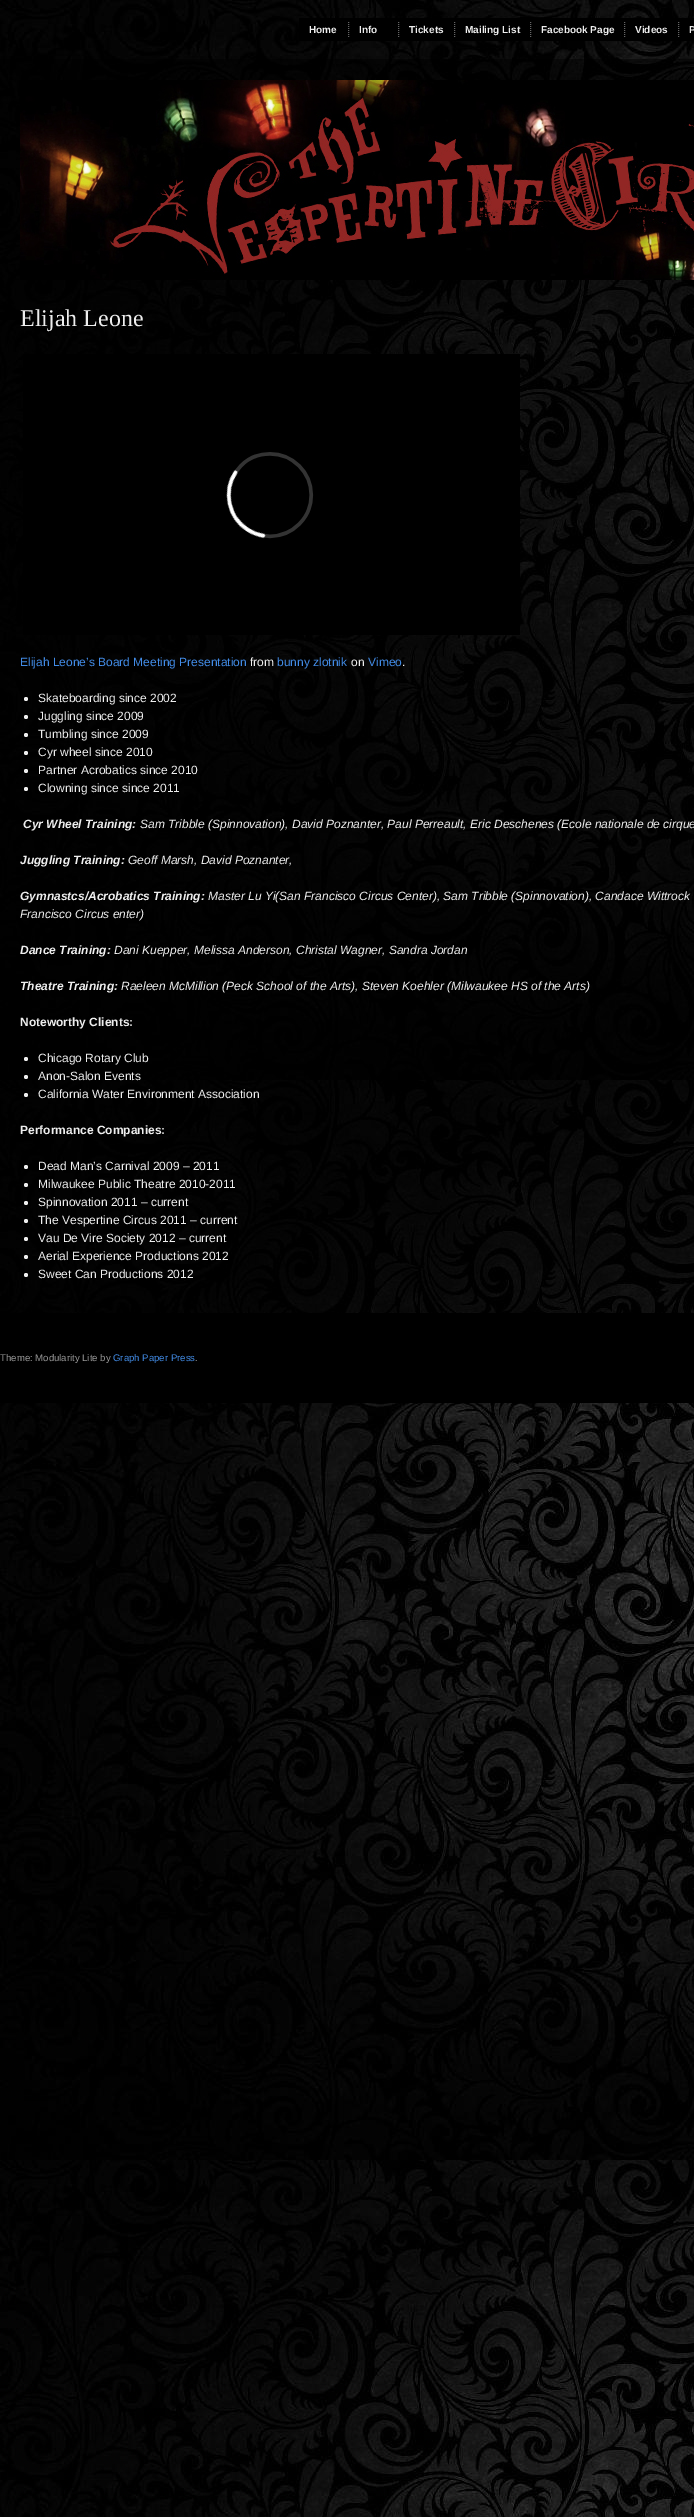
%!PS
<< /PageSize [694 2517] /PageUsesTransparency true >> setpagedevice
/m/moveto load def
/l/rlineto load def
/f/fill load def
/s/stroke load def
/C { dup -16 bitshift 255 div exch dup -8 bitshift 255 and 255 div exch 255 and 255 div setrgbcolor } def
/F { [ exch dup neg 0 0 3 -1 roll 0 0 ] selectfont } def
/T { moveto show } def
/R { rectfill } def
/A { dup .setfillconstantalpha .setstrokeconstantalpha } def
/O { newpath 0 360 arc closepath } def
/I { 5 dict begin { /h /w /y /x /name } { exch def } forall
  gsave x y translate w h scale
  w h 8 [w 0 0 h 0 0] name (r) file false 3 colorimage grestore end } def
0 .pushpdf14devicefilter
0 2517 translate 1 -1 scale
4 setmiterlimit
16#FFFFFF C
0 0 694 2517 R
(1.rgb) 0 0 694 2517 I
16#000000 C
299 18 395 23 R
16#666666 C
[1 1] 0 setdash
348.5 22 m 0 15 l s
/LiberationSans-Bold 10 F
16#EEEEEE C
(Home) 309 33 T
16#666666 C
398.5 22 m 0 15 l s
16#EEEEEE C
(Info) 359 33 T
16#666666 C
454.5 22 m 0 15 l s
16#EEEEEE C
(Tickets) 409 33 T
16#666666 C
530.5 22 m 0 15 l s
16#EEEEEE C
(Mailing List) 465 33 T
16#666666 C
624.5 22 m 0 15 l s
16#EEEEEE C
(Facebook Page) 541 33 T
16#666666 C
678.5 22 m 0 15 l s
16#EEEEEE C
(Videos) 635 33 T
(P) 689 33 T
0.5 A
16#000000 C
0 59 694 1254 R
1 A
(2.rgb) 20 80 674 200 I
/LiberationSerif-Regular 24 F
16#EEEEEE C
(Elijah Leone) 20 326 T
(3.rgb) 23 354 497 281 I
/LiberationSans-Regular 12 F
16#428CE7 C
(Elijah Leone’s Board Meeting Presentation) 20 666 T
16#EEEEEE C
(from) 250 666 T
16#428CE7 C
(bunny zlotnik) 277 666 T
16#EEEEEE C
(on) 351 666 T
16#428CE7 C
(Vimeo) 368 666 T
16#EEEEEE C
(.) 402 666 T
26 699 2 O f
(Skateboarding since 2002) 38 702 T
26 717 2 O f
(Juggling since 2009) 38 720 T
26 735 2 O f
(Tumbling since 2009) 38 738 T
26 753 2 O f
(Cyr wheel since 2010) 38 756 T
26 771 2 O f
(Partner Acrobatics since 2010) 38 774 T
26 789 2 O f
(Clowning since since 2011) 38 792 T
/LiberationSans-BoldItalic 12 F
(Cyr Wheel Training:) 23 828 T
/LiberationSans-Italic 12 F
(Sam Tribble \(Spinnovation\), David Poznanter, Paul Perreault, Eric Deschenes \(Ecole nationale de cirque) 140 828 T
/LiberationSans-BoldItalic 12 F
(Juggling Training:) 20 864 T
/LiberationSans-Italic 12 F
(Geoff Marsh, David Poznanter,) 128 864 T
/LiberationSans-BoldItalic 12 F
(Gymnastcs/Acrobatics Training:) 20 900 T
/LiberationSans-Italic 12 F
(Master Lu Yi\(San Francisco Circus Center\), Sam Tribble \(Spinnovation\), Candace Wittrock) 208 900 T
(Francisco Circus enter\)) 20 918 T
/LiberationSans-BoldItalic 12 F
(Dance Training:) 20 954 T
/LiberationSans-Italic 12 F
(Dani Kuepper, Melissa Anderson, Christal Wagner, Sandra Jordan) 114 954 T
/LiberationSans-BoldItalic 12 F
(Theatre Training:) 20 990 T
/LiberationSans-Italic 12 F
(Raeleen McMillion \(Peck School of the Arts\), Steven Koehler \(Milwaukee HS of the Arts\)) 121 990 T
/LiberationSans-Bold 12 F
(Noteworthy Clients:) 20 1026 T
26 1059 2 O f
/LiberationSans-Regular 12 F
(Chicago Rotary Club) 38 1062 T
26 1077 2 O f
(Anon-Salon Events) 38 1080 T
26 1095 2 O f
(California Water Environment Association) 38 1098 T
/LiberationSans-Bold 12 F
(Performance Companies:) 20 1134 T
26 1167 2 O f
/LiberationSans-Regular 12 F
(Dead Man’s Carnival 2009 – 2011) 38 1170 T
26 1185 2 O f
(Milwaukee Public Theatre 2010-2011) 38 1188 T
26 1203 2 O f
(Spinnovation 2011 – current) 38 1206 T
26 1221 2 O f
(The Vespertine Circus 2011 – current) 38 1224 T
26 1239 2 O f
(Vau De Vire Society 2012 – current) 38 1242 T
26 1257 2 O f
(Aerial Experience Productions 2012) 38 1260 T
26 1275 2 O f
(Sweet Can Productions 2012) 38 1278 T
16#000000 C
0 1313 694 90 R
/LiberationSans-Regular 9.6 F
16#999999 C
(Theme: Modularity Lite by) 0 1361 T
16#428CE7 C
(Graph Paper Press) 113 1361 T
16#999999 C
(.) 195 1361 T
.poppdf14devicefilter showpage
